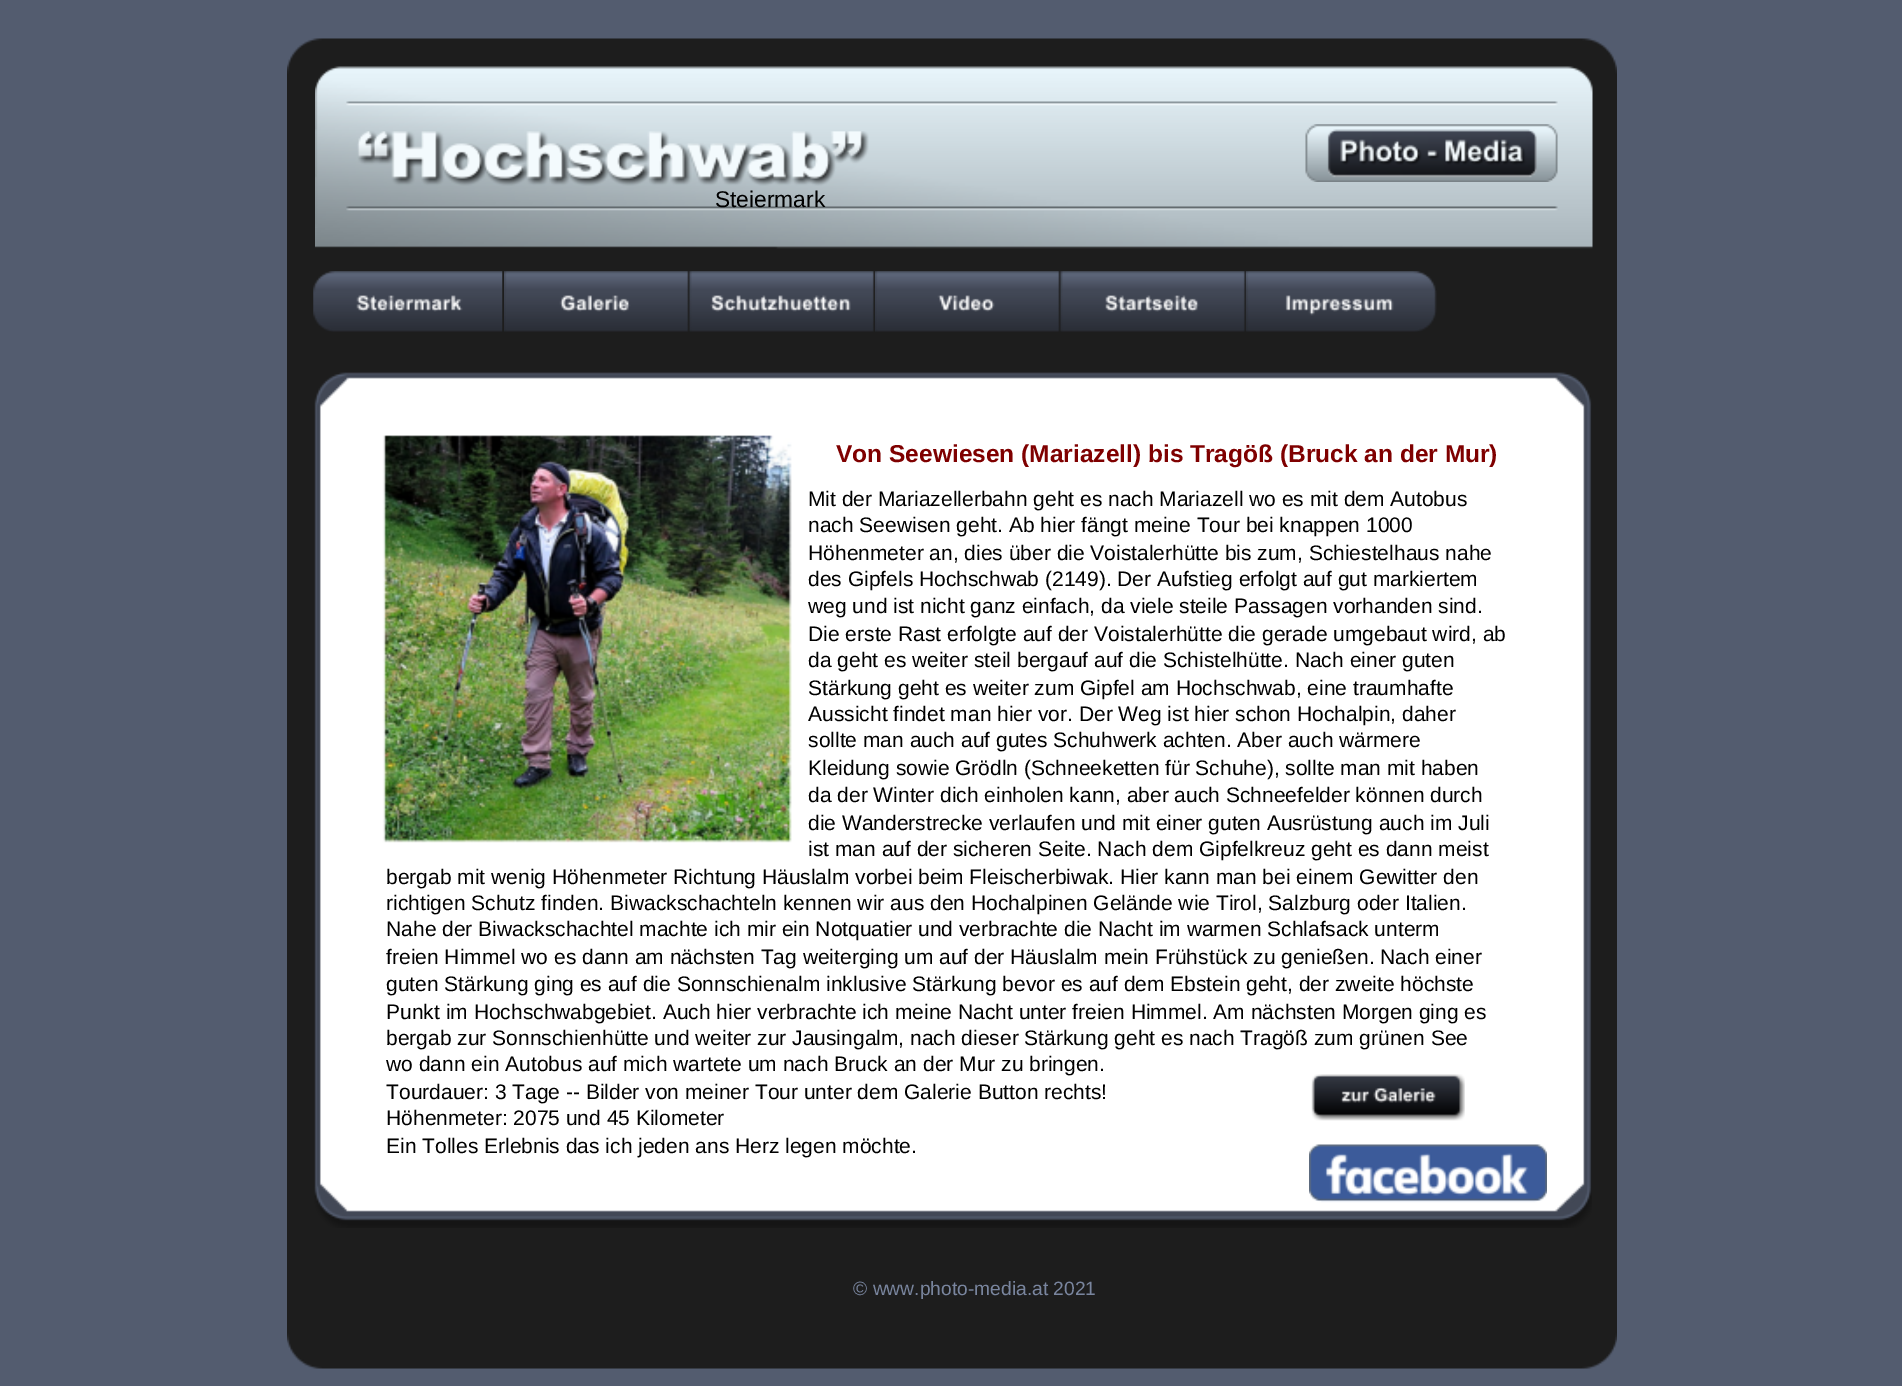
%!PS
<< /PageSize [1902 1386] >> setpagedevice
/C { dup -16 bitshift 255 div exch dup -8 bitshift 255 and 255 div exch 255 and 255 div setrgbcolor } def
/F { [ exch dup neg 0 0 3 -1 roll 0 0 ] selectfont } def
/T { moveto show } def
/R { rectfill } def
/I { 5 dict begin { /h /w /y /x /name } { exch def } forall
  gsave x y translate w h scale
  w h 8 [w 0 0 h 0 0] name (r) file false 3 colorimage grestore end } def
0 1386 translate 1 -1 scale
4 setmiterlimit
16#535C6F C
0 0 1902 1386 R
(1.rgb) 287 38 1330 1331 I
(2.rgb) 315 66 1278 183 I
(3.rgb) 357 131 512 55 I
(4.rgb) 1305 124 253 58 I
/LiberationSans-Regular 22.75 F
16#000000 C
(Steiermark) 715 207 T
(5.rgb) 313 271 190 61 I
(6.rgb) 504 271 186 61 I
(7.rgb) 689 271 186 61 I
(8.rgb) 875 271 186 61 I
(9.rgb) 1060 271 186 61 I
(10.rgb) 1246 271 191 61 I
(11.rgb) 314 372 1278 856 I
(12.rgb) 317 374 1268 838 I
/LiberationSans-Bold 24.5 F
16#7F0000 C
(Von Seewiesen \(Mariazell\) bis Tragöß \(Bruck an der Mur\)) 836 462 T
/LiberationSans-Regular 21 F
16#000000 C
(Mit der Mariazellerbahn geht es nach Mariazell wo es mit dem Autobus) 808 506 T
(nach Seewisen geht. Ab hier fängt meine Tour bei knappen 1000) 808 532 T
(Höhenmeter an, dies über die Voistalerhütte bis zum, Schiestelhaus nahe) 808 560 T
(des Gipfels Hochschwab \(2149\). Der Aufstieg erfolgt auf gut markiertem) 808 586 T
(weg und ist nicht ganz einfach, da viele steile Passagen vorhanden sind.) 808 613 T
(Die erste Rast erfolgte auf der Voistalerhütte die gerade umgebaut wird, ab) 808 641 T
(da geht es weiter steil bergauf auf die Schistelhütte. Nach einer guten) 808 667 T
(Stärkung geht es weiter zum Gipfel am Hochschwab, eine traumhafte) 808 695 T
(Aussicht findet man hier vor. Der Weg ist hier schon Hochalpin, daher) 808 721 T
(sollte man auch auf gutes Schuhwerk achten. Aber auch wärmere) 808 747 T
(Kleidung sowie Grödln \(Schneeketten für Schuhe\), sollte man mit haben) 808 775 T
(da der Winter dich einholen kann, aber auch Schneefelder können durch) 808 802 T
(die Wanderstrecke verlaufen und mit einer guten Ausrüstung auch im Juli) 808 830 T
(ist man auf der sicheren Seite. Nach dem Gipfelkreuz geht es dann meist) 808 856 T
(bergab mit wenig Höhenmeter Richtung Häuslalm vorbei beim Fleischerbiwak. Hier kann man bei einem Gewitter den) 386 884 T
(richtigen Schutz finden. Biwackschachteln kennen wir aus den Hochalpinen Gelände wie Tirol, Salzburg oder Italien.) 386 910 T
(Nahe der Biwackschachtel machte ich mir ein Notquatier und verbrachte die Nacht im warmen Schlafsack unterm) 386 936 T
(freien Himmel wo es dann am nächsten Tag weiterging um auf der Häuslalm mein Frühstück zu genießen. Nach einer) 386 964 T
(guten Stärkung ging es auf die Sonnschienalm inklusive Stärkung bevor es auf dem Ebstein geht, der zweite höchste) 386 991 T
(Punkt im Hochschwabgebiet. Auch hier verbrachte ich meine Nacht unter freien Himmel. Am nächsten Morgen ging es) 386 1019 T
(bergab zur Sonnschienhütte und weiter zur Jausingalm, nach dieser Stärkung geht es nach Tragöß zum grünen See) 386 1045 T
(wo dann ein Autobus auf mich wartete um nach Bruck an der Mur zu bringen.) 386 1071 T
(Tourdauer: 3 Tage -- Bilder von meiner Tour unter dem Galerie Button rechts!) 386 1099 T
(Höhenmeter: 2075 und 45 Kilometer) 386 1125 T
(Ein Tolles Erlebnis das ich jeden ans Herz legen möchte.) 386 1153 T
(13.rgb) 1311 1074 154 47 I
(14.rgb) 1309 1144 238 59 I
/LiberationSans-Regular 19.25 F
16#79859E C
(© www.photo-media.at 2021) 853 1295 T
showpage
